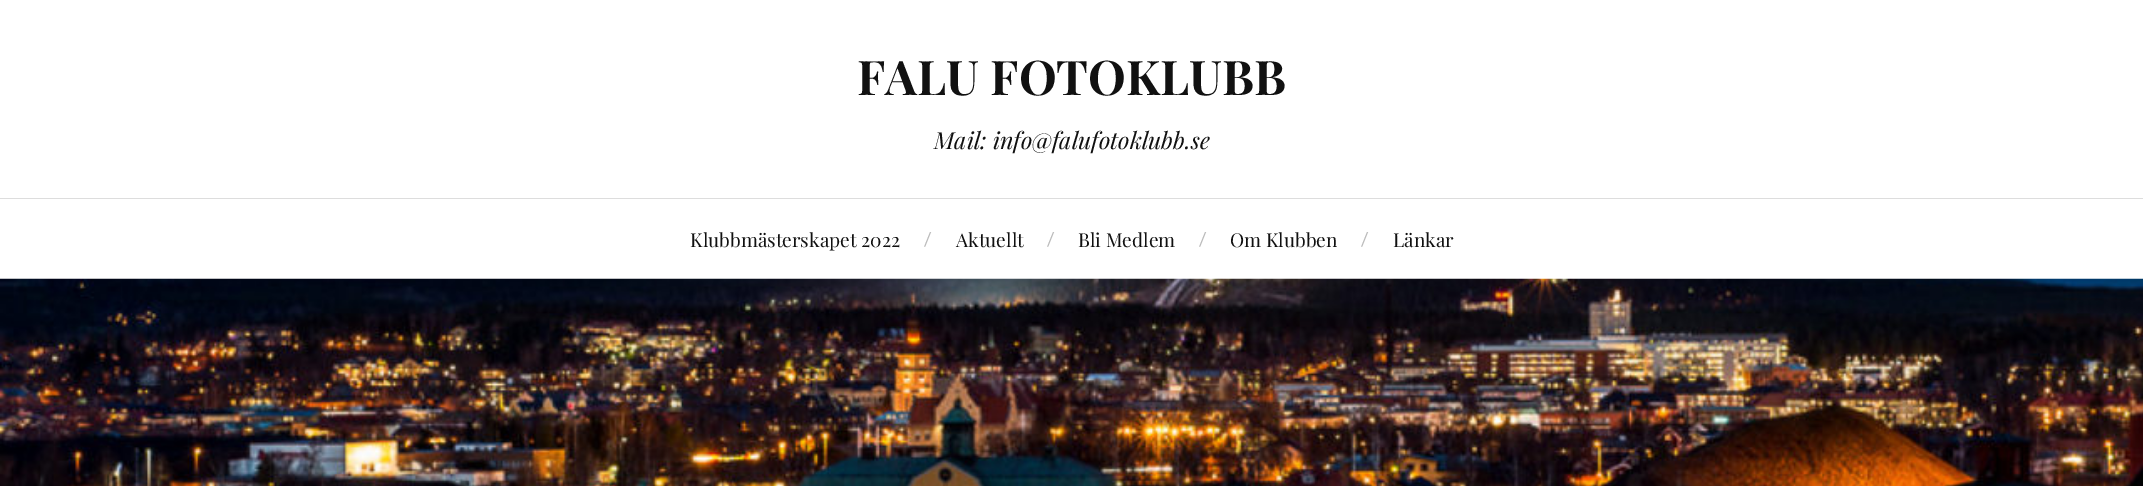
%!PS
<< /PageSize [2143 486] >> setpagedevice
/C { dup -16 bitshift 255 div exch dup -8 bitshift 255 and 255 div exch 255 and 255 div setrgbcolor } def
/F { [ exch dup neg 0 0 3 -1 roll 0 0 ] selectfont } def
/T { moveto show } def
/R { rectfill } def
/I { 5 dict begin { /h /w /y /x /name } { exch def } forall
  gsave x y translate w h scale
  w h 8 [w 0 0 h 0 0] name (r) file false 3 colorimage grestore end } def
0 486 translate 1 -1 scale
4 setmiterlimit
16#FFFFFF C
0 0 2143 486 R
/PlayfairDisplay-Bold 47.75 F
16#111111 C
(FALU FOTOKLUBB) 857 95 T
/PlayfairDisplay-Italic 23.4 F
(Mail: info@falufotoklubb.se) 934 149 T
16#DDDDDD C
0 198 2143 1 R
/PlayfairDisplay-Regular 19.1 F
16#111111 C
(Klubbmästerskapet 2022) 690 247 T
/Lato-Regular 19 F
16#BBBBBB C
(/) 924 246 T
/PlayfairDisplay-Regular 19.1 F
16#111111 C
(Aktuellt) 956 247 T
/Lato-Regular 19 F
16#BBBBBB C
(/) 1047 246 T
/PlayfairDisplay-Regular 19.1 F
16#111111 C
(Bli Medlem) 1078 247 T
/Lato-Regular 19 F
16#BBBBBB C
(/) 1199 246 T
/PlayfairDisplay-Regular 19.1 F
16#111111 C
(Om Klubben) 1230 247 T
/Lato-Regular 19 F
16#BBBBBB C
(/) 1361 246 T
/PlayfairDisplay-Regular 19.1 F
16#111111 C
(Länkar) 1393 247 T
(1.rgb) 0 278 2143 208 I
showpage
